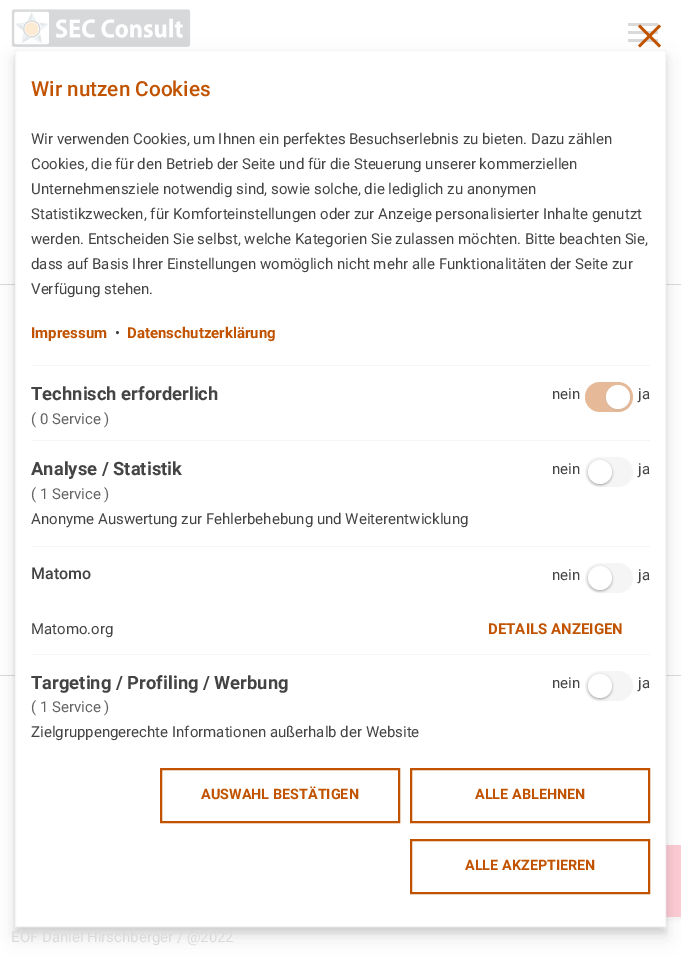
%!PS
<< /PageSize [681 977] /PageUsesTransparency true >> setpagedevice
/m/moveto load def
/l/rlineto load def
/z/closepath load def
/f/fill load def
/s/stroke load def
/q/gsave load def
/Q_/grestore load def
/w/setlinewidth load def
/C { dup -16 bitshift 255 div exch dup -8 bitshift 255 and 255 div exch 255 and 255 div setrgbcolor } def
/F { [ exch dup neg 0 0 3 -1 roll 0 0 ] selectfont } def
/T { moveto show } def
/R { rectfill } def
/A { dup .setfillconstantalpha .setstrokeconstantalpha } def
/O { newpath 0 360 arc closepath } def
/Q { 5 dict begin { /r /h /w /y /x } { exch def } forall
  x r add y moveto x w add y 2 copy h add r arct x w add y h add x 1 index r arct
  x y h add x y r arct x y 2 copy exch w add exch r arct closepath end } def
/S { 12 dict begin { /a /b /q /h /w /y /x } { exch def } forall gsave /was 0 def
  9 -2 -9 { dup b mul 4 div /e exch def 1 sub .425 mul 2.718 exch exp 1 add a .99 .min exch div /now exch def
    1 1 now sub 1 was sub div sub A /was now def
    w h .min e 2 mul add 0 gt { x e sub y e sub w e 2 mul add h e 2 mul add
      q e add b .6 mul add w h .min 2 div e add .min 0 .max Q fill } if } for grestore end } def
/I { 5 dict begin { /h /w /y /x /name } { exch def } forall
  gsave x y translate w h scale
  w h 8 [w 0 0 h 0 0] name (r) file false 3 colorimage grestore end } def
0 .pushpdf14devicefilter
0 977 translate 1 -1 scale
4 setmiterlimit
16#FFFFFF C
0 0 681 977 R
(1.rgb) 11 9 180 39 I
16#CCCCCC C
597 848 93 72 0 3 .23 S
16#FDCCD5 C
666 845 13 72 R
16#DADADA C
0 284 681 1 R
0 675 681 1 R
16#000000 C
15 56 651 877 0 3 .1 S
16#DADADA C
628 31 30 3 R
628 39 30 3 R
16#FDCCD5 C
2 w
680 846 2 70 rectstroke
16#000000 C
15 60 651 877 0 10 .1 S
16#FFFFFF C
15.5 50.5 m 650 0 l 0 876 l -650 0 l z q f Q_
16#F5F5F5 C
1 w
s
16#DADADA C
628 23 30 3 R
16#C15300 C
659 24.5 m 2 2 l -21 21 l -2 -2 l z f
638 26.5 m 2 -2 l 21 21 l -2 2 l z f
/Roboto-Medium 20.75 F
(Wir nutzen Cookies) 31 96 T
/Roboto-Regular 15 F
16#444444 C
(Wir verwenden Cookies, um Ihnen ein perfektes Besuchserlebnis zu bieten. Dazu zählen) 31 144 T
(Cookies, die für den Betrieb der Seite und für die Steuerung unserer kommerziellen) 31 169 T
(Unternehmensziele notwendig sind, sowie solche, die lediglich zu anonymen) 31 194 T
(Statistikzwecken, für Komforteinstellungen oder zur Anzeige personalisierter Inhalte genutzt) 31 219 T
(werden. Entscheiden Sie selbst, welche Kategorien Sie zulassen möchten. Bitte beachten Sie,) 31 244 T
(dass auf Basis Ihrer Einstellungen womöglich nicht mehr alle Funktionalitäten der Seite zur) 31 269 T
(Verfügung stehen.) 31 294 T
/Roboto-Bold 15 F
16#C15300 C
(Impressum) 31 338 T
/Roboto-Regular 15 F
16#444444 C
(•) 115 338 T
/Roboto-Bold 15 F
16#C15300 C
(Datenschutzerklärung) 127 338 T
16#F5F5F5 C
31 365 619 1 R
31 440 619 1 R
/Roboto-Bold 18.4 F
16#444444 C
(Technisch erforderlich) 31 400 T
/Roboto-Regular 15 F
16#646464 C
(\( 0 Service \)) 31 424 T
16#444444 C
(nein) 552 399 T
16#E6BA99 C
585 382 48 30 15 Q f
16#999999 C
606 386 24 24 12 1 .24 S
16#FFFFFF C
618 397 12 O f
16#444444 C
(ja) 638 399 T
16#F5F5F5 C
31 654 619 1 R
/Roboto-Bold 18.4 F
16#444444 C
(Analyse / Statistik) 31 475 T
/Roboto-Regular 15 F
16#646464 C
(\( 1 Service \)) 31 499 T
16#444444 C
(Anonyme Auswertung zur Fehlerbehebung und Weiterentwicklung) 31 524 T
(nein) 552 474 T
16#F5F5F5 C
585 457 48 30 15 Q f
16#000000 C
588 461 24 24 12 1 .24 S
588 461 24 24 12 1.5 .12 S
16#FFFFFF C
600 472 12 O f
16#444444 C
(ja) 638 474 T
16#F5F5F5 C
31 546 619 1 R
/Roboto-Medium 16 F
16#444444 C
(Matomo) 31 579 T
/Roboto-Regular 15 F
(nein) 552 580 T
16#F5F5F5 C
585 563 48 30 15 Q f
16#000000 C
588 567 24 24 12 1 .24 S
588 567 24 24 12 1.5 .12 S
16#FFFFFF C
600 578 12 O f
16#444444 C
(ja) 638 580 T
(Matomo.org) 31 634 T
/Roboto-Bold 15 F
16#C15300 C
(DETAILS ANZEIGEN) 488 634 T
/Roboto-Bold 18.4 F
16#444444 C
(Targeting / Profiling / Werbung) 31 689 T
/Roboto-Regular 15 F
16#646464 C
(\( 1 Service \)) 31 712 T
16#444444 C
(Zielgruppengerechte Informationen außerhalb der Website) 31 737 T
(nein) 552 688 T
16#F5F5F5 C
585 671 48 30 15 Q f
16#000000 C
588 675 24 24 12 1 .24 S
588 675 24 24 12 1.5 .12 S
16#FFFFFF C
600 686 12 O f
16#444444 C
(ja) 638 688 T
16#C15300 C
2 w
161 769 238 53 rectstroke
/Roboto-Bold 14.4 F
(AUSWAHL BESTÄTIGEN) 201 799 T
411 769 238 53 rectstroke
(ALLE ABLEHNEN) 475 799 T
411 840 238 53 rectstroke
(ALLE AKZEPTIEREN) 465 870 T
/Roboto-Regular 15 F
16#DADADA C
(EOF Daniel Hirschberger / @2022) 11 942 T
.poppdf14devicefilter showpage
